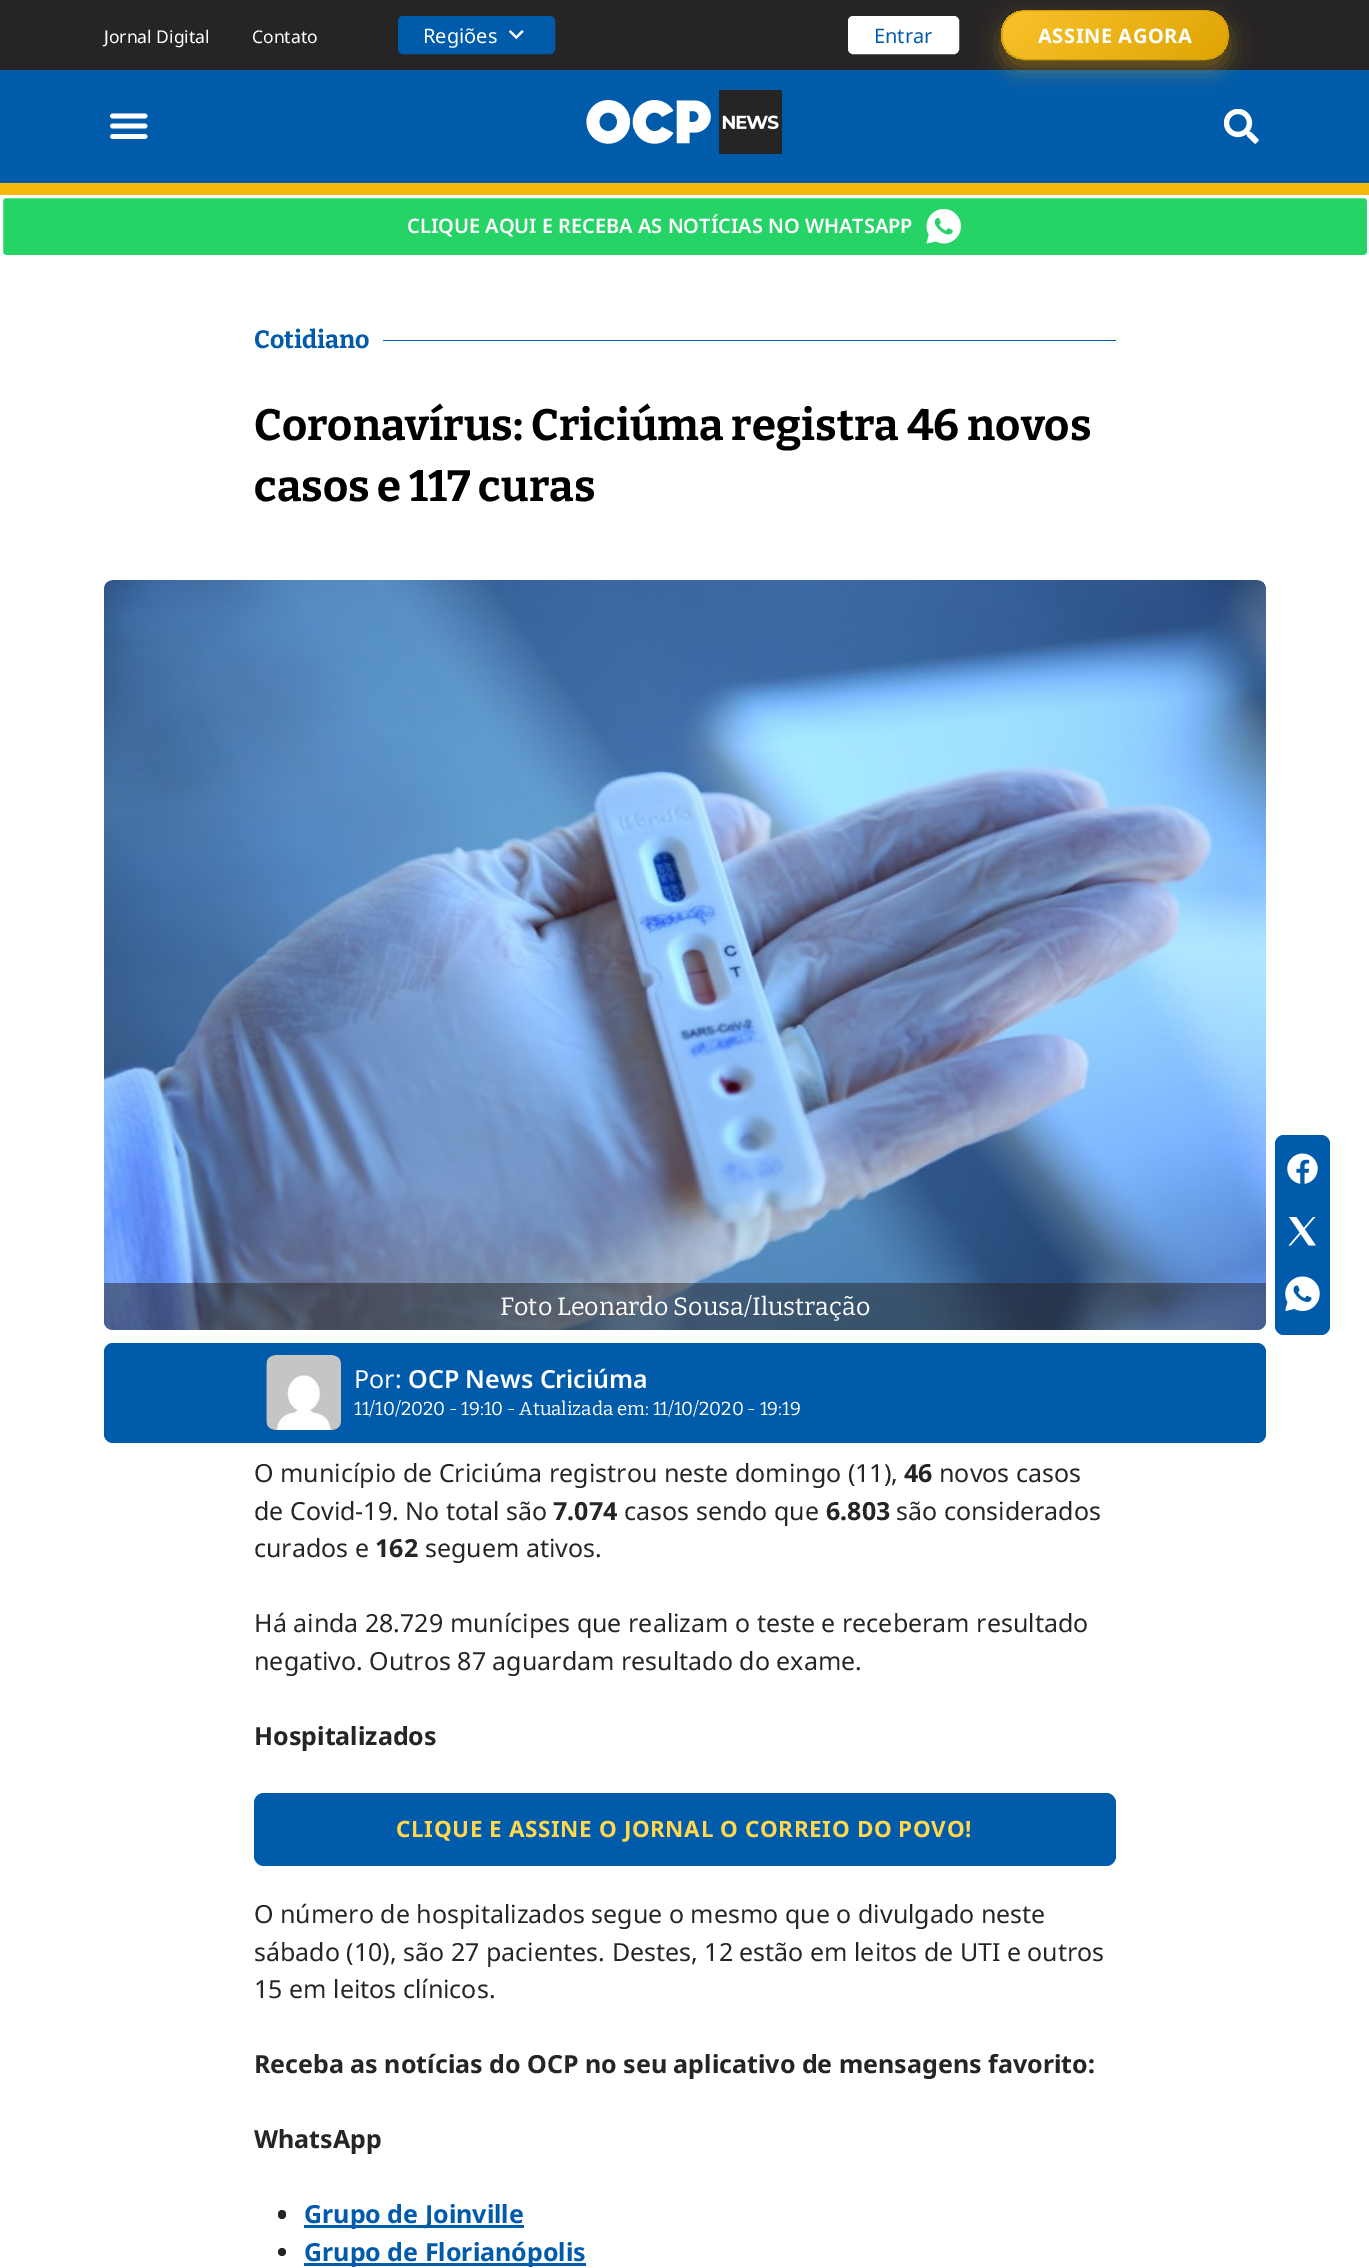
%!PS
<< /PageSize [1369 2268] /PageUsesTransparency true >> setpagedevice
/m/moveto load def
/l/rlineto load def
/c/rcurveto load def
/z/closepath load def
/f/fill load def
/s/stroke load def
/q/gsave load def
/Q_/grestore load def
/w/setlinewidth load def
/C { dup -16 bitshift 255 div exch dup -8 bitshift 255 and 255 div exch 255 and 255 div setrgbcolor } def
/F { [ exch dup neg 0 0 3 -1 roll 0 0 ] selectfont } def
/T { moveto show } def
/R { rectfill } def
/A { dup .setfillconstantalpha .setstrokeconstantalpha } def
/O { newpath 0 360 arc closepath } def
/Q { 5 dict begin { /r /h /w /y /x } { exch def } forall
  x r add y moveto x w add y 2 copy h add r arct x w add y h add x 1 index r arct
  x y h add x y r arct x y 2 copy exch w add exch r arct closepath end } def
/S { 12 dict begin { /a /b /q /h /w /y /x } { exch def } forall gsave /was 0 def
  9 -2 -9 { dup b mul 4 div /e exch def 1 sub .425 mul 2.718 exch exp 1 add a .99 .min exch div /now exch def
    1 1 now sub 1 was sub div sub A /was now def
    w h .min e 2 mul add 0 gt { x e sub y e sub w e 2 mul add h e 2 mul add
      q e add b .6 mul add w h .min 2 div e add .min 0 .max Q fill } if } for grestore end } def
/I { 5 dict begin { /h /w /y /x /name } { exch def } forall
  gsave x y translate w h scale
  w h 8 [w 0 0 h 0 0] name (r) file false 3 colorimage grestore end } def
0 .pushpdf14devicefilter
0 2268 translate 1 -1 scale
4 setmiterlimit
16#FFFFFF C
0 0 1369 2268 R
16#272425 C
0 0 1369 70 R
/NotoSans-Regular 17.5 F
16#FFFFFF C
(Jornal Digital) 104 43 T
(Contato) 252 43 T
16#005BAA C
398.5 16.5 156 37 4.5 Q q f Q_
s
/NotoSans-Regular 20 F
16#FFFFFF C
(Regiões) 423 43 T
(1.rgb) 508 30 16 10 I
848.5 16.5 110 37 4.5 Q q f Q_
s
16#015AAA C
(Entrar) 874 43 T
16#005BAA C
0 70 1369 113 R
16#F8B90C C
1001 20 228 50 25 11 .35 S
q
1001 10 228 50 25 Q clip newpath
q 1001 25 m 2 0 l 0 20 l -2 0 l z clip newpath
<< /ShadingType 2 /ColorSpace /DeviceRGB /Coords [822 -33 958 103] /Extend [true true] /Function << /FunctionType 2 /Domain [0 1] /C0 [.976 .761 .165] /C1 [.875 .647 .024] /N 1 >> >> shfill Q_
q 1003 11 m 225 0 l 0 48 l -225 0 l z clip newpath
<< /ShadingType 2 /ColorSpace /DeviceRGB /Coords [1047 -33 1183 103] /Extend [true true] /Function << /FunctionType 2 /Domain [0 1] /C0 [.976 .761 .165] /C1 [.875 .647 .024] /N 1 >> >> shfill Q_
Q_
16#D59E06 C
1001.5 10.5 227 49 24.5 Q s
/NotoSans-Bold 20 F
16#FFFFFF C
1038 43 m .6 0 (ASSINE AGORA) ashow
16#F8B90C C
0 183 1369 12 R
16#FFFFFF C
4.7 w
1 setlinecap
112.5 116 m 32.5 0 l 112.5 126 m 32.5 0 l 112.5 136.5 m 32.5 0 l s
(2.rgb) 586 90 196 64 I
(3.rgb) 1224 109 35 35 I
16#25D366 C
1.5 196.5 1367 60 4.5 Q q f Q_
16#FFFFFF C
3 w
0 setlinecap
s
/NotoSans-SemiBold 20 F
(CLIQUE AQUI E RECEBA AS NOTÍCIAS NO WHATSAPP) 407 233 T
(4.rgb) 926 209 35 35 I
/Bitter-Bold 25 F
16#015AAA C
(Cotidiano) 254 348 T
383 340 733 1 R
/Bitter-Bold 43.75 F
16#000000 C
(Coronavírus: Criciúma registra 46 novos) 254 440 T
(casos e 117 curas) 254 501 T
16#005BAA C
1275 1135 55 200 9 Q f
(5.rgb) 1287 1153 31 31 I
(6.rgb) 1288 1217 28 29 I
(7.rgb) 1285 1276 35 35 I
16#BCBCBC C
104 580 1162 750 9 Q f
(8.rgb) 104 580 1162 750 I
0.5 A
16#272425 C
104 1283 m 1162 0 l 0 38 l 0 5 -4 9 -9 9 c -1144 0 l -5 0 -9 -4 -9 -9 c z f
/Bitter-Regular 25 F
1 A
16#FFFFFF C
(Foto Leonardo Sousa/Ilustração) 500 1315 T
16#005BAA C
104 1343 1162 100 9 Q f
(9.rgb) 266 1355 75 75 I
/NotoSans-Regular 25 F
16#FFFFFF C
(Por:) 354 1388 T
/NotoSans-SemiBold 25 F
(OCP News Criciúma) 408 1388 T
/Bitter-Regular 18.75 F
(11/10/2020 - 19:10 - Atualizada em: 11/10/2020 - 19:19) 354 1415 T
/NotoSans-Regular 25 F
16#272425 C
(O município de Criciúma registrou neste domingo \(11\),) 254 1482 T
/NotoSans-Bold 25 F
(46) 904 1482 T
/NotoSans-Regular 25 F
(novos casos) 939 1482 T
(de Covid-19. No total são) 254 1520 T
/NotoSans-Bold 25 F
(7.074) 553 1520 T
/NotoSans-Regular 25 F
(casos sendo que) 624 1520 T
/NotoSans-Bold 25 F
(6.803) 826 1520 T
/NotoSans-Regular 25 F
(são considerados) 896 1520 T
(curados e) 254 1557 T
/NotoSans-Bold 25 F
(162) 375 1557 T
/NotoSans-Regular 25 F
(seguem ativos.) 425 1557 T
(Há ainda 28.729 munícipes que realizam o teste e receberam resultado) 254 1632 T
(negativo. Outros 87 aguardam resultado do exame.) 254 1670 T
/NotoSans-Bold 25 F
(Hospitalizados) 254 1745 T
16#005BAA C
254 1793 862 73 10 Q f
/NotoSans-Bold 22.5 F
16#FFD84D C
396 1837 m .6 0 (CLIQUE E ASSINE O JORNAL O CORREIO DO POVO!) ashow
/NotoSans-Regular 25 F
16#272425 C
(O número de hospitalizados segue o mesmo que o divulgado neste) 254 1923 T
(sábado \(10\), são 27 pacientes. Destes, 12 estão em leitos de UTI e outros) 254 1961 T
(15 em leitos clínicos.) 254 1998 T
/NotoSans-Bold 25 F
(Receba as notícias do OCP no seu aplicativo de mensagens favorito:) 254 2073 T
(WhatsApp) 254 2148 T
278 2210 8 9 4 Q f
16#005BAA C
304 2225 220 3 R
16#015AAA C
(Grupo de Joinville) 304 2223 T
16#272425 C
282 2252 4 O f
16#005BAA C
304 2263 282 3 R
16#015AAA C
(Grupo de Florianópolis) 304 2261 T
.poppdf14devicefilter showpage
